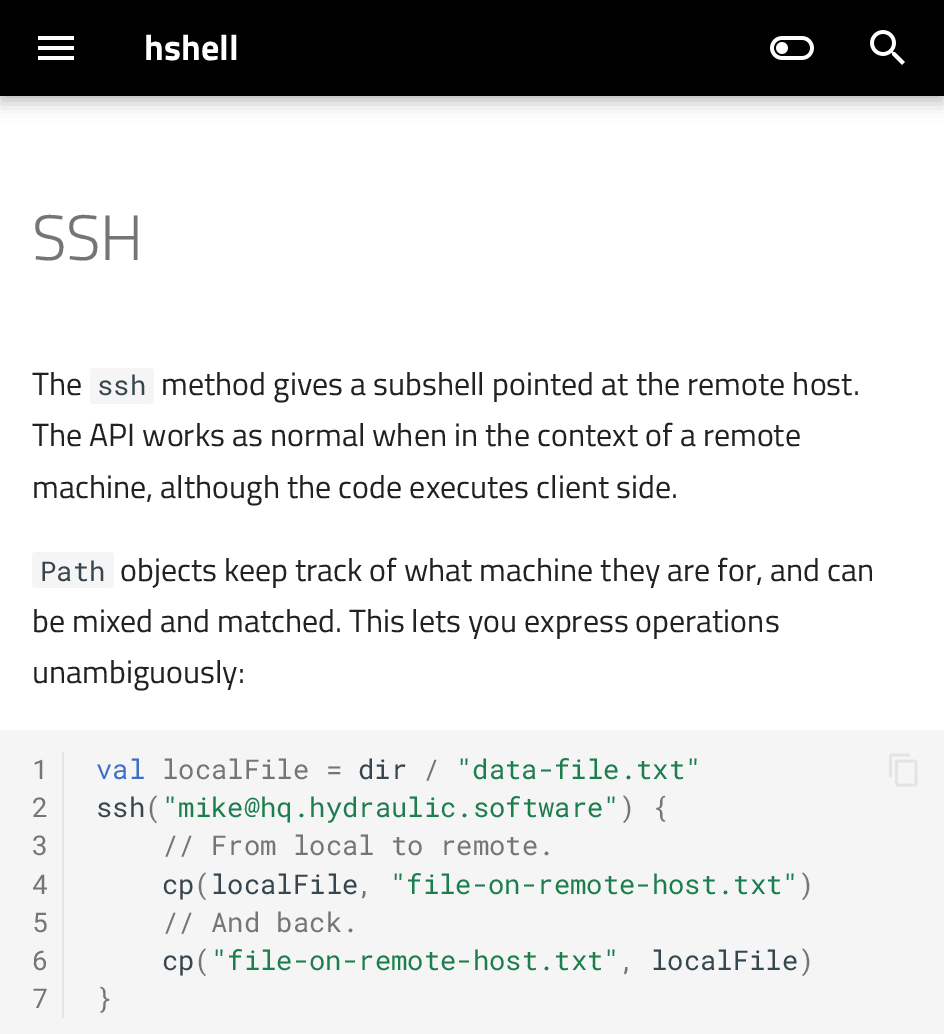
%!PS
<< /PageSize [944 1034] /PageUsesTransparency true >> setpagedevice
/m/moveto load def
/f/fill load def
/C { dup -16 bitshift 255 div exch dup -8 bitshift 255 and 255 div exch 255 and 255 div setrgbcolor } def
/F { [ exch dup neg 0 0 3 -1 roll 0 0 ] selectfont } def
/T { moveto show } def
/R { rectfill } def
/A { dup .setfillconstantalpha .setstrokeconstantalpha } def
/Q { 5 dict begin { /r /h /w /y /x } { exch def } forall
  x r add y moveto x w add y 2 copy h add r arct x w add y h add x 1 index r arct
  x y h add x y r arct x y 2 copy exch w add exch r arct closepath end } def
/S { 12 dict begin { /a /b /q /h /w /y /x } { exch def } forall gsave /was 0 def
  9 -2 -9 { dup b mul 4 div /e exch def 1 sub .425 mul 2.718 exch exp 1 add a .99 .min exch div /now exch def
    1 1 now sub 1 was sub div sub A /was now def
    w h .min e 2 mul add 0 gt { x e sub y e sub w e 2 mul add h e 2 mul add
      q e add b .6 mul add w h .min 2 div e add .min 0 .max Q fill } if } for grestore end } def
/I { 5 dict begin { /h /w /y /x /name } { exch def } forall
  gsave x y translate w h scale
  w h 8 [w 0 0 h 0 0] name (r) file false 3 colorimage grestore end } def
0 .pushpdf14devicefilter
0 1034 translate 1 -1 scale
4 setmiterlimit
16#FFFFFF C
0 0 944 1034 R
16#000000 C
0 8 944 96 0 8 .2 S
0 0 944 96 0 4 .1 S
0 0 944 96 R
(1.rgb) 38 36 36 24 I
/TitilliumWeb-Bold 36 F
16#FFFFFF C
(hshell) 144 60 T
(2.rgb) 770 36 44 24 I
(3.rgb) 870 30 35 35 I
/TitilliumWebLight-Light 64 F
16#757575 C
32 260 m -.5 0 (SSH) ashow
/TitilliumWeb-Regular 32 F
16#212121 C
(The) 32 395 T
16#F5F5F5 C
90 368 64 36 4 Q f
/RobotoMono-Regular 27.25 F
16#36464E C
(ssh) 97 395 T
/TitilliumWeb-Regular 32 F
16#212121 C
(method gives a subshell pointed at the remote host.) 161 395 T
(The API works as normal when in the context of a remote) 32 446 T
(machine, although the code executes client side.) 32 498 T
16#F5F5F5 C
32 552 82 36 4 Q f
/RobotoMono-Regular 27.25 F
16#36464E C
(Path) 40 581 T
/TitilliumWeb-Regular 32 F
16#212121 C
120 581 m -.25 0 32 (objects keep track of what machine they are for, and can) widthshow
32 632 m -.25 0 32 (be mixed and matched. This lets you express operations) widthshow
(unambiguously:) 32 683 T
16#F5F5F5 C
0 730 944 304 R
16#E4E4E4 C
62 752 2 266 R
/RobotoMono-Regular 27.25 F
16#757575 C
(1) 32 779 T
(2) 32 817 T
(3) 32 855 T
(4) 32 894 T
(5) 32 932 T
(6) 32 970 T
(7) 32 1008 T
16#3F6EC6 C
(val) 96 779 T
16#757575 C
(localFile =) 162 779 T
16#36464E C
(dir) 358 779 T
16#757575 C
(/) 423 779 T
16#1C7D4D C
("data-file.txt") 456 779 T
16#36464E C
(ssh) 96 817 T
16#757575 C
(\() 145 817 T
16#1C7D4D C
("mike@hq.hydraulic.software") 162 817 T
16#757575 C
(\) {) 619 817 T
(// From local to remote.) 162 855 T
16#36464E C
(cp localFile) 162 894 T
16#757575 C
(\() 194 894 T
(\)) 798 894 T
(,) 357 894 T
16#1C7D4D C
("file-on-remote-host.txt") 390 894 T
16#757575 C
(// And back.) 162 932 T
16#36464E C
(cp) 162 970 T
16#757575 C
(\() 194 970 T
16#1C7D4D C
("file-on-remote-host.txt") 211 970 T
16#757575 C
(,) 619 970 T
16#36464E C
(localFile) 651 970 T
16#757575 C
(\)) 798 970 T
(}) 96 1008 T
(4.rgb) 889 753 29 34 I
.poppdf14devicefilter showpage
